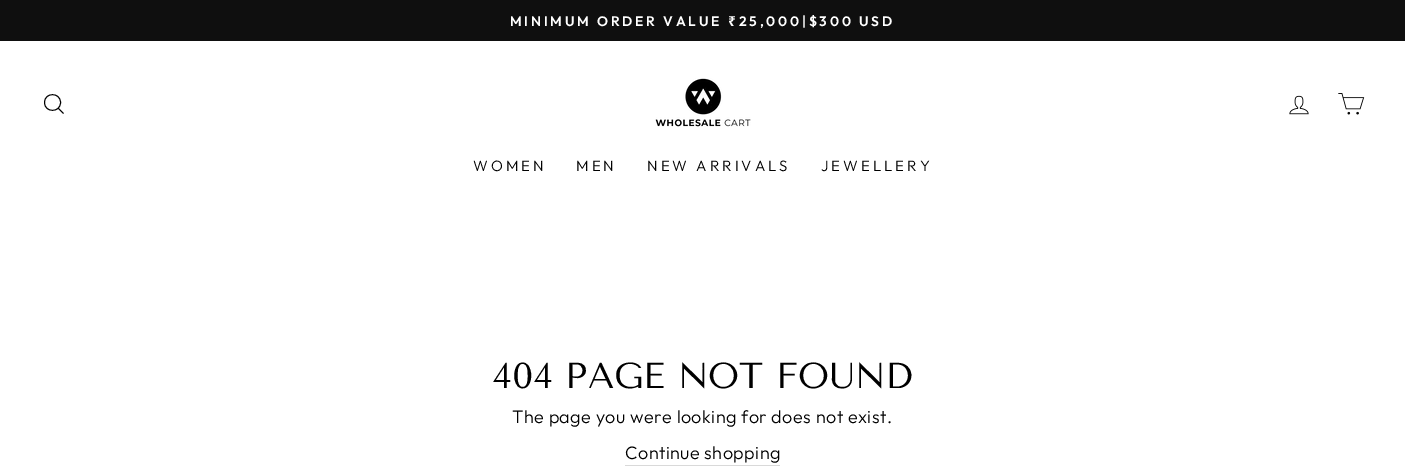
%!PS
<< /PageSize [1405 466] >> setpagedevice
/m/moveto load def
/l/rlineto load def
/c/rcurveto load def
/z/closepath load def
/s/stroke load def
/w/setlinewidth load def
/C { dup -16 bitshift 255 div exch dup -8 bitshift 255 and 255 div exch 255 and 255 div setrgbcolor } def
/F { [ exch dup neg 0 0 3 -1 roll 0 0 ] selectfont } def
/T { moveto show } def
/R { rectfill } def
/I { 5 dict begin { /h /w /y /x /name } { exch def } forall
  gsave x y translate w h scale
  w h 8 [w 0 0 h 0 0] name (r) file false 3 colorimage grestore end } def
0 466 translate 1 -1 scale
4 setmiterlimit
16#FFFFFF C
0 0 1405 466 R
16#0F0F0F C
0 0 1405 41 R
/Outfit-SemiBold 13.75 F
16#FFFFFF C
510 26 m 2.75 0 (MINIMUM ORDER VALUE) ashow
/NotoSans-Bold 13.75 F
728 26 m 2.75 0 (₹) ashow
/Outfit-SemiBold 13.75 F
739 26 m 2.75 0 (25,000|$300 USD) ashow
16#000000 C
.9 w
60.5 102.5 m 0 10.5 -16 10.5 -16 0 c 0 -10.5 16 -10.5 16 0 c z 63.5 113.5 m -5 -5 l s
(1.rgb) 655 78 96 49 I
(2.rgb) 1289 95 20 20 I
(3.rgb) 1338 93 27 22 I
/Outfit-Light 15 F
473 171 m 3 0 (WOMEN) ashow
576 171 m 3 0 (MEN) ashow
647 171 m 3 0 (NEW ARRIVALS) ashow
821 171 m 3 0 (JEWELLERY) ashow
/TenorSans-Regular 36 F
(404 PAGE NOT FOUND) 492 388 T
/Outfit-Light 18 F
512 423 m .45 0 (The page you were looking for does not exist.) ashow
16#D9D9D9 C
625 465 155 1 R
16#000000 C
625 459 m .45 0 (Continue shopping) ashow
showpage
